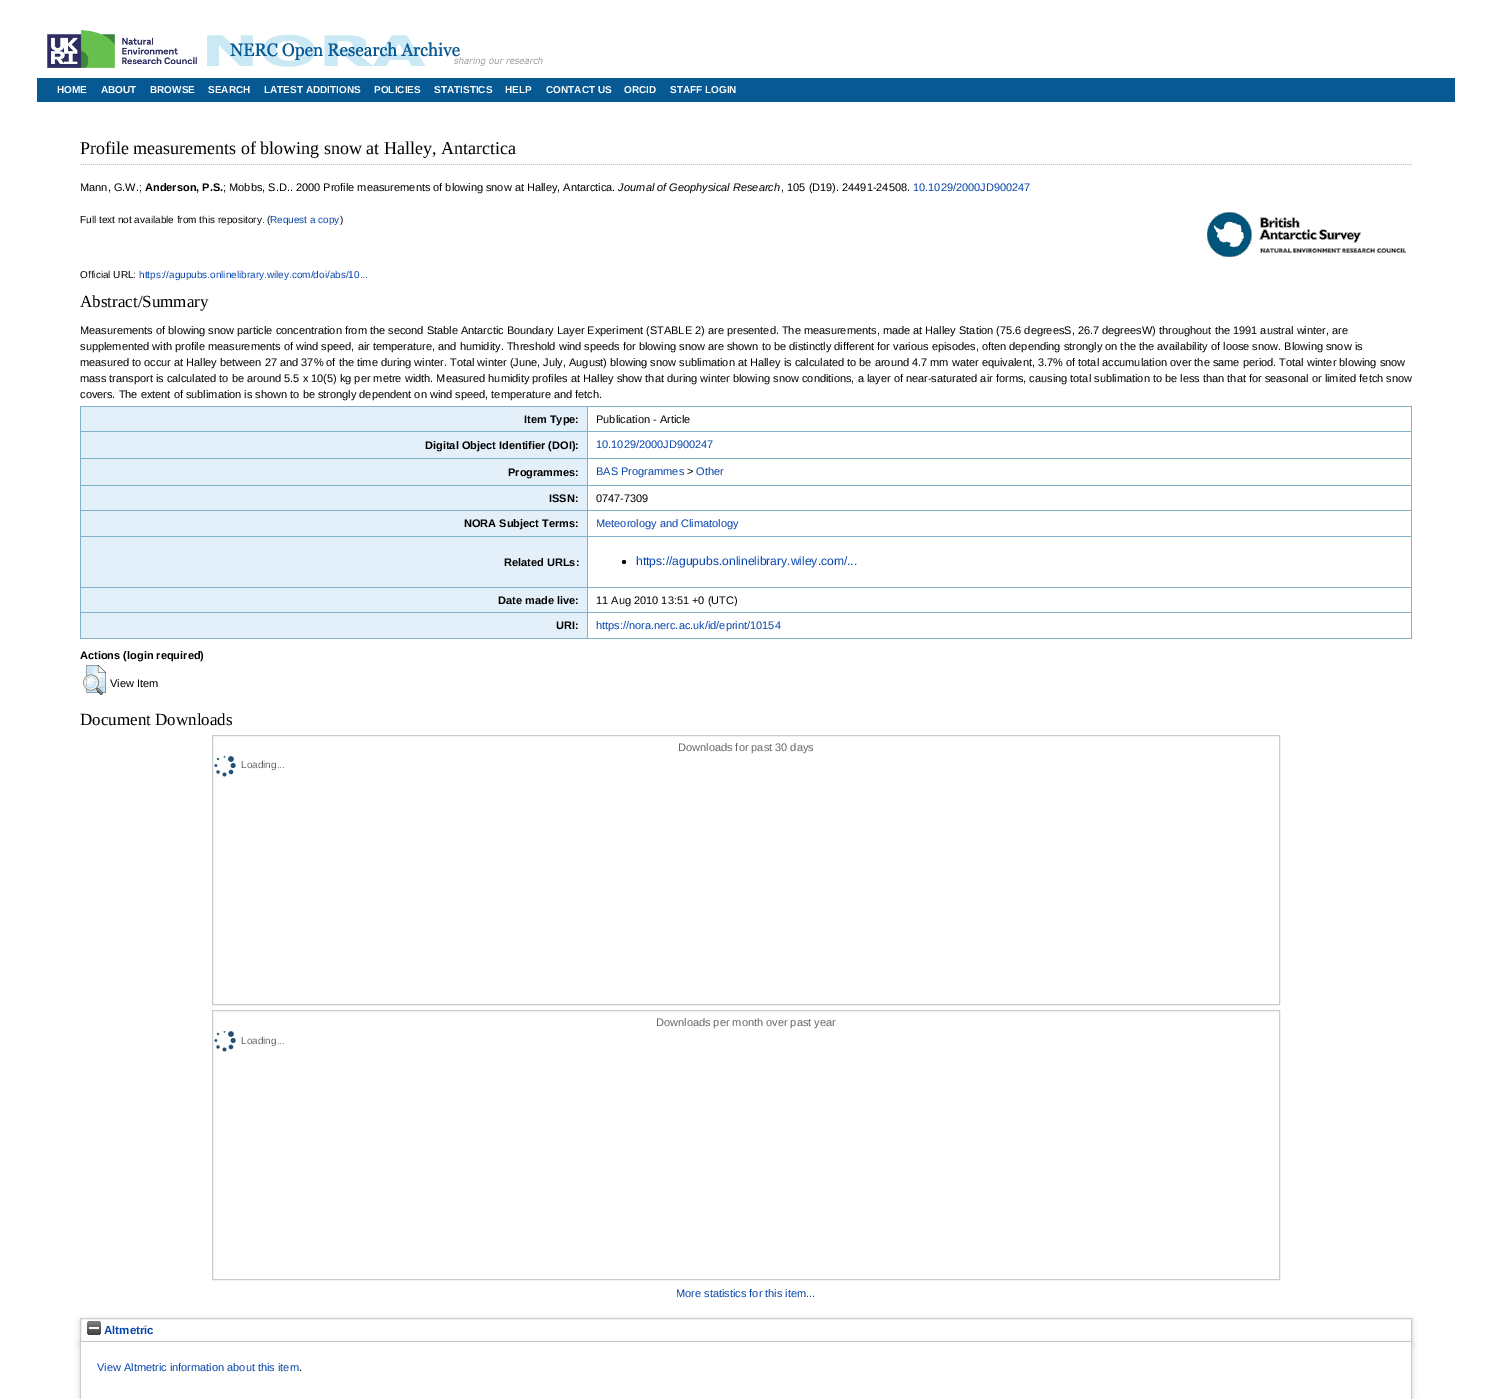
%!PS
<< /PageSize [1492 1399] /PageUsesTransparency true >> setpagedevice
/m/moveto load def
/l/rlineto load def
/z/closepath load def
/f/fill load def
/q/gsave load def
/Q_/grestore load def
/C { dup -16 bitshift 255 div exch dup -8 bitshift 255 and 255 div exch 255 and 255 div setrgbcolor } def
/F { [ exch dup neg 0 0 3 -1 roll 0 0 ] selectfont } def
/T { moveto show } def
/R { rectfill } def
/A { dup .setfillconstantalpha .setstrokeconstantalpha } def
/O { newpath 0 360 arc closepath } def
/Q { 5 dict begin { /r /h /w /y /x } { exch def } forall
  x r add y moveto x w add y 2 copy h add r arct x w add y h add x 1 index r arct
  x y h add x y r arct x y 2 copy exch w add exch r arct closepath end } def
/S { 12 dict begin { /a /b /q /h /w /y /x } { exch def } forall gsave /was 0 def
  9 -2 -9 { dup b mul 4 div /e exch def 1 sub .425 mul 2.718 exch exp 1 add a .99 .min exch div /now exch def
    1 1 now sub 1 was sub div sub A /was now def
    w h .min e 2 mul add 0 gt { x e sub y e sub w e 2 mul add h e 2 mul add
      q e add b .6 mul add w h .min 2 div e add .min 0 .max Q fill } if } for grestore end } def
/I { 5 dict begin { /h /w /y /x /name } { exch def } forall
  gsave x y translate w h scale
  w h 8 [w 0 0 h 0 0] name (r) file false 3 colorimage grestore end } def
0 .pushpdf14devicefilter
0 1399 translate 1 -1 scale
4 setmiterlimit
16#FFFFFF C
0 0 1492 1399 R
(1.rgb) 47 30 150 38 I
(2.rgb) 207 34 336 33 I
16#075993 C
37 78 1418 24 R
/LiberationSans-Bold 10 F
16#FFFFFF C
(HOME) 57 93 T
(ABOUT) 101 93 T
(BROWSE) 150 93 T
(SEARCH) 208 93 T
(LATEST ADDITIONS) 264 93 T
(POLICIES) 374 93 T
(STATISTICS) 434 93 T
(HELP) 505 93 T
(CONTACT US) 546 93 T
(ORCID) 624 93 T
(STAFF LOGIN) 670 93 T
(3.rgb) 80 164 1332 1 I
/LiberationSerif-Regular 18 F
16#000000 C
(Profile measurements of blowing snow at Halley, Antarctica) 80 154 T
/LiberationSans-Regular 11 F
(Mann, G.W.;) 80 191 T
/LiberationSans-Bold 11 F
(Anderson, P.S.) 145 191 T
/LiberationSans-Regular 11 F
(; Mobbs, S.D.. 2000 Profile measurements of blowing snow at Halley, Antarctica.) 223 191 T
/LiberationSans-Italic 11 F
(Journal of Geophysical Research) 618 191 T
/LiberationSans-Regular 11 F
(, 105 \(D19\). 24491-24508.) 781 191 T
16#0645AD C
(10.1029/2000JD900247) 913 191 T
/LiberationSans-Regular 10 F
16#000000 C
(Full text not available from this repository. \() 80 223 T
16#0645AD C
(Request a copy) 270 223 T
16#000000 C
(\)) 340 223 T
(4.rgb) 1207 212 199 45 I
(Official URL:) 80 278 T
16#0645AD C
(https://agupubs.onlinelibrary.wiley.com/doi/abs/10...) 139 278 T
/LiberationSerif-Regular 17 F
16#000000 C
(Abstract/Summary) 80 307 T
/LiberationSans-Regular 11 F
(Measurements of blowing snow particle concentration from the second Stable Antarctic Boundary Layer Experiment \(STABLE 2\) are presented. The measurements, made at Halley Station \(75.6 degreesS, 26.7 degreesW\) throughout the 1991 austral winter, are) 80 334 T
(supplemented with profile measurements of wind speed, air temperature, and humidity. Threshold wind speeds for blowing snow are shown to be distinctly different for various episodes, often depending strongly on the the availability of loose snow. Blowing snow is) 80 350 T
(measured to occur at Halley between 27 and 37% of the time during winter. Total winter \(June, July, August\) blowing snow sublimation at Halley is calculated to be around 4.7 mm water equivalent, 3.7% of total accumulation over the same period. Total winter blowing snow) 80 366 T
(mass transport is calculated to be around 5.5 x 10\(5\) kg per metre width. Measured humidity profiles at Halley show that during winter blowing snow conditions, a layer of near-saturated air forms, causing total sublimation to be less than that for seasonal or limited fetch snow) 80 382 T
(covers. The extent of sublimation is shown to be strongly dependent on wind speed, temperature and fetch.) 80 398 T
16#E3F0F9 C
81 407 506 24 R
16#82B1CA C
587 406 825 1 R
587 431 825 1 R
587 458 825 1 R
587 485 825 1 R
587 510 825 1 R
587 536 825 1 R
587 587 825 1 R
587 612 825 1 R
1411 612 1 27 R
587 638 825 1 R
587 612 1 27 R
80 612 508 1 R
587 587 1 26 R
80 587 508 1 R
587 536 1 52 R
80 536 508 1 R
587 510 1 27 R
80 510 508 1 R
587 485 1 26 R
80 485 508 1 R
587 458 1 28 R
80 458 508 1 R
587 431 1 28 R
80 431 508 1 R
587 406 1 26 R
80 406 508 1 R
80 638 508 1 R
80 612 1 27 R
80 587 1 26 R
80 536 1 52 R
80 510 1 27 R
80 485 1 26 R
80 458 1 28 R
80 431 1 28 R
80 406 1 26 R
/LiberationSans-Bold 11 F
16#000000 C
(Item Type:) 524 423 T
16#82B1CA C
1411 587 1 26 R
1411 536 1 52 R
1411 510 1 27 R
1411 485 1 26 R
1411 458 1 28 R
1411 431 1 28 R
1411 406 1 26 R
/LiberationSans-Regular 11 F
16#000000 C
(Publication - Article) 596 423 T
16#E3F0F9 C
81 432 506 26 R
/LiberationSans-Bold 11 F
16#000000 C
(Digital Object Identifier \(DOI\):) 425 449 T
/LiberationSans-Regular 11 F
16#0645AD C
(10.1029/2000JD900247) 596 448 T
16#E3F0F9 C
81 459 506 26 R
/LiberationSans-Bold 11 F
16#000000 C
(Programmes:) 508 476 T
/LiberationSans-Regular 11 F
16#0645AD C
(BAS Programmes) 596 475 T
16#000000 C
(>) 687 475 T
16#0645AD C
(Other) 696 475 T
16#E3F0F9 C
81 486 506 24 R
/LiberationSans-Bold 11 F
16#000000 C
(ISSN:) 549 502 T
/LiberationSans-Regular 11 F
(0747-7309) 596 502 T
16#E3F0F9 C
81 511 506 25 R
/LiberationSans-Bold 11 F
16#000000 C
(NORA Subject Terms:) 464 527 T
/LiberationSans-Regular 11 F
16#0645AD C
(Meteorology and Climatology) 596 527 T
16#E3F0F9 C
81 537 506 50 R
/LiberationSans-Bold 11 F
16#000000 C
(Related URLs:) 504 566 T
624 562 2 O f
/LiberationSans-Regular 12.1 F
16#0645AD C
(https://agupubs.onlinelibrary.wiley.com/...) 636 565 T
16#E3F0F9 C
81 588 506 24 R
/LiberationSans-Bold 11 F
16#000000 C
(Date made live:) 498 604 T
/LiberationSans-Regular 11 F
(11 Aug 2010 13:51 +0 \(UTC\)) 596 604 T
16#E3F0F9 C
81 613 506 25 R
/LiberationSans-Bold 11 F
16#000000 C
(URI:) 556 629 T
/LiberationSans-Regular 11 F
16#0645AD C
(https://nora.nerc.ac.uk/id/eprint/10154) 596 629 T
/LiberationSans-Bold 11 F
16#000000 C
(Actions \(login required\)) 80 659 T
(5.rgb) 83 665 23 30 I
/LiberationSans-Regular 11 F
(View Item) 110 687 T
/LiberationSerif-Regular 17 F
(Document Downloads) 80 725 T
16#CCCCCC C
212.5 735.5 1067 269 rectstroke
/LiberationSans-Regular 11 F
16#666666 C
(Downloads for past 30 days) 678 751 T
(6.rgb) 214 755 22 22 I
/LiberationSans-Regular 10 F
(Loading...) 241 768 T
16#CCCCCC C
212.5 1010.5 1067 269 rectstroke
/LiberationSans-Regular 11 F
16#666666 C
(Downloads per month over past year) 656 1026 T
(6.rgb) 214 1030 22 22 I
/LiberationSans-Regular 10 F
(Loading...) 241 1044 T
/LiberationSans-Regular 11 F
16#0645AD C
(More statistics for this item...) 676 1297 T
q
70 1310 m 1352 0 l 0 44 l -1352 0 l z 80 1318 m 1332 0 l 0 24 l -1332 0 l z eoclip newpath
16#646464 C
80 1320 1332 24 0 3 .3 S
Q_
16#CCCCCC C
80.5 1318.5 1331 23 rectstroke
16#646464 C
80 1344 1332 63 0 3 .3 S
(7.rgb) 87 1321 14 14 I
/LiberationSans-Bold 11.5 F
16#0645AD C
(Altmetric) 104 1334 T
16#FFFFFF C
81 1342 1330 57 R
16#CCCCCC C
1411 1342 1 57 R
80 1342 1 57 R
/LiberationSans-Regular 11 F
16#0645AD C
(View Altmetric information about this item) 97 1371 T
16#000000 C
(.) 299 1371 T
.poppdf14devicefilter showpage
